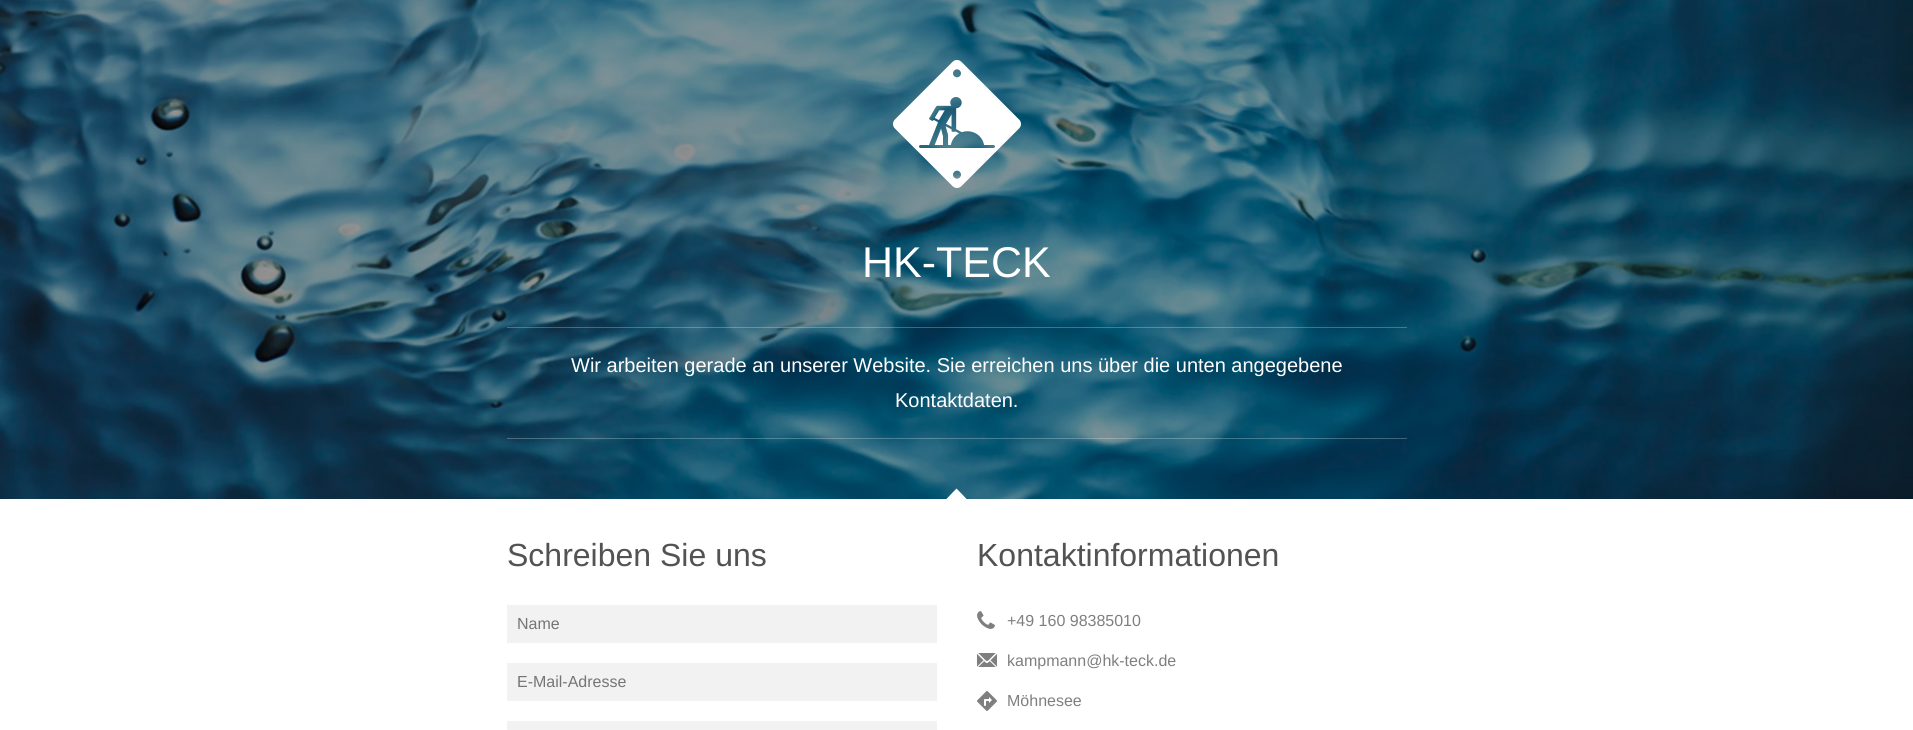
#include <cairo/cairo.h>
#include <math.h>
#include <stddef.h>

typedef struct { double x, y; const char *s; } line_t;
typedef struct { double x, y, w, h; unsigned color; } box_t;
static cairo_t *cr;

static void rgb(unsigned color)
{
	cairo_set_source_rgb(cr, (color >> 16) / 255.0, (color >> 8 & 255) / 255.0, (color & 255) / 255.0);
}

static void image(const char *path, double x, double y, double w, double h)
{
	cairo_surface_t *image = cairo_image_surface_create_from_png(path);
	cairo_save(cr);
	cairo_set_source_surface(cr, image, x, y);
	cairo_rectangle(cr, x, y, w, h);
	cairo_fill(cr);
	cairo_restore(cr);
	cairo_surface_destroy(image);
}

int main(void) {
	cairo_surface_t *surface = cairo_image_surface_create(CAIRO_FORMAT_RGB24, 1913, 730);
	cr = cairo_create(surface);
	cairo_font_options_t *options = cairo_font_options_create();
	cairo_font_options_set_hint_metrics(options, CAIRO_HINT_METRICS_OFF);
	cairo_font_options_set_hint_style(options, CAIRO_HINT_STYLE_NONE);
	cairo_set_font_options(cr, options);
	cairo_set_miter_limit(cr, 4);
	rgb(0xffffff);
	cairo_paint(cr);
	image("img/1.png", 0, 0, 1913, 499);
	image("img/2.png", 893, 60, 128, 128);
	cairo_set_source_rgba(cr, 1, 1, 1, 0.25);
	cairo_rectangle(cr, 507, 327, 900, 1);
	cairo_fill(cr);
	cairo_rectangle(cr, 507, 438, 900, 1);
	cairo_fill(cr);
	rgb(0xffffff);
	cairo_new_path(cr);
	cairo_move_to(cr, 956.5, 488.5);
	cairo_line_to(cr, 970.5, 503);
	cairo_line_to(cr, 956.5, 517);
	cairo_line_to(cr, 942.5, 503);
	cairo_close_path(cr);
	cairo_fill(cr);
	{
		static const box_t items[] = {
			{507, 605, 430, 38, 0xf2f2f2},
			{507, 663, 430, 38, 0xf2f2f2},
			{507, 721, 430, 9, 0xf2f2f2},
		};
		for (size_t i = 0; i < sizeof items / sizeof *items; i++) {
			rgb(items[i].color);
			cairo_rectangle(cr, items[i].x, items[i].y, items[i].w, items[i].h);
			cairo_fill(cr);
		}
	}
	image("img/3.png", 977, 611, 18, 18);
	image("img/4.png", 977, 653, 20, 14);
	image("img/5.png", 977, 691, 20, 20);
	cairo_select_font_face(cr, "Liberation Sans", CAIRO_FONT_SLANT_NORMAL, CAIRO_FONT_WEIGHT_NORMAL);
	cairo_set_font_size(cr, 43);
	rgb(0xffffff);
	cairo_move_to(cr, 862, 277);
	cairo_show_text(cr, "HK-TECK");
	cairo_set_font_size(cr, 20);
	cairo_move_to(cr, 571, 372);
	cairo_show_text(cr, "Wir arbeiten gerade an unserer Website. Sie erreichen uns über die unten angegebene");
	cairo_move_to(cr, 895, 407);
	cairo_show_text(cr, "Kontaktdaten.");
	cairo_set_font_size(cr, 32);
	rgb(0x535353);
	cairo_move_to(cr, 507, 566);
	cairo_show_text(cr, "Schreiben Sie uns");
	cairo_set_font_size(cr, 16);
	rgb(0x757575);
	cairo_move_to(cr, 517, 629);
	cairo_show_text(cr, "Name");
	cairo_move_to(cr, 517, 687);
	cairo_show_text(cr, "E-Mail-Adresse");
	cairo_set_font_size(cr, 32);
	rgb(0x535353);
	cairo_move_to(cr, 977, 566);
	cairo_show_text(cr, "Kontaktinformationen");
	cairo_set_font_size(cr, 16);
	rgb(0x7f7f7f);
	{
		static const line_t items[] = {
			{1007, 626, "+49 160 98385010"},
			{1007, 666, "kampmann@hk-teck.de"},
			{1007, 706, "Möhnesee"},
		};
		for (size_t i = 0; i < sizeof items / sizeof *items; i++) {
			cairo_move_to(cr, items[i].x, items[i].y);
			cairo_show_text(cr, items[i].s);
		}
	}
	cairo_surface_write_to_png(surface, "page.png");
	cairo_font_options_destroy(options);
	cairo_destroy(cr);
	cairo_surface_destroy(surface);
	return 0;
}
